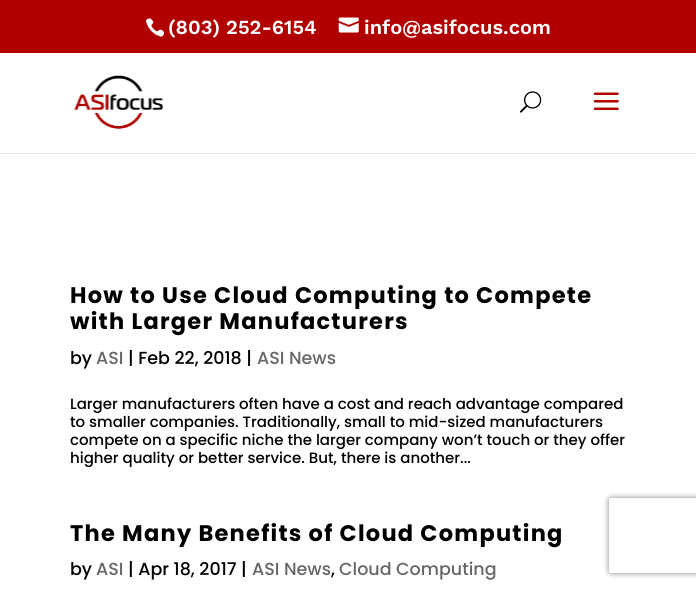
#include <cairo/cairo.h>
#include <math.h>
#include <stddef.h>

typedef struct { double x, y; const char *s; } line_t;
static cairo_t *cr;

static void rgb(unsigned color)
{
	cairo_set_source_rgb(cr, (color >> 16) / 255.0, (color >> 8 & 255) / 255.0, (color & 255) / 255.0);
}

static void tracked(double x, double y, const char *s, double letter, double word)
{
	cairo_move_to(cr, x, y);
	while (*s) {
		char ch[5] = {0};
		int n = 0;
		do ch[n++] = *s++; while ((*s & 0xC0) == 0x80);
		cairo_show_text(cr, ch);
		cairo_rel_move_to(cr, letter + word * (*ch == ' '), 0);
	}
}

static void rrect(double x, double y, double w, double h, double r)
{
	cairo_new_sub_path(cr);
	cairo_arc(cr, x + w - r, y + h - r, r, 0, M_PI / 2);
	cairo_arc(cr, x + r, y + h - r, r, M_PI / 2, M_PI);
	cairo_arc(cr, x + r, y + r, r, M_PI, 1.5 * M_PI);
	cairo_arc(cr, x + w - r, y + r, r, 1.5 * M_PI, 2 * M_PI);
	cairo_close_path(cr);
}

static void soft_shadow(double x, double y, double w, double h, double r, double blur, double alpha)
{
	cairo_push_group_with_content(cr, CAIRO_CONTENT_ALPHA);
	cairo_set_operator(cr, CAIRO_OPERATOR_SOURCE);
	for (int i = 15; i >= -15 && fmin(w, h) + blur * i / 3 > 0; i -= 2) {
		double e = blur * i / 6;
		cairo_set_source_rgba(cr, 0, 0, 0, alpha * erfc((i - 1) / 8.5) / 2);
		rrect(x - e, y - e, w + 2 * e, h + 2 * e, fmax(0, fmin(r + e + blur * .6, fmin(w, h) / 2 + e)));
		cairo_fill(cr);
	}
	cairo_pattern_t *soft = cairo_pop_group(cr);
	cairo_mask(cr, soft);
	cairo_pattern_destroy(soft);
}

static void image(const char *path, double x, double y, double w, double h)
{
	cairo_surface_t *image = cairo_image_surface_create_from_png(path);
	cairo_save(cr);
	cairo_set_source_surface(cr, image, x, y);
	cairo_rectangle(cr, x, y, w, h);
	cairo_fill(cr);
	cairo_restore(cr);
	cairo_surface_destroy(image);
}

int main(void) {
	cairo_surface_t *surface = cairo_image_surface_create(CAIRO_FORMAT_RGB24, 696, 590);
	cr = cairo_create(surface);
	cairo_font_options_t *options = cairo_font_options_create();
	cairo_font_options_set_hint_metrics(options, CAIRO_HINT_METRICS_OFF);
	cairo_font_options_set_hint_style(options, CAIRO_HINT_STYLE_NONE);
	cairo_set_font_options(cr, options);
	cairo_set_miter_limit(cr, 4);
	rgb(0xffffff);
	cairo_paint(cr);
	rgb(0xb00000);
	cairo_rectangle(cr, 0, 0, 696, 53);
	cairo_fill(cr);
	image("img/1.png", 145, 18, 20, 19);
	image("img/2.png", 338, 17, 21, 16);
	rgb(0xe6e6e6);
	cairo_rectangle(cr, 0, 153, 696, 1);
	cairo_fill(cr);
	image("img/3.png", 74, 75, 90, 54);
	image("img/4.png", 520, 91, 22, 22);
	image("img/5.png", 593, 92, 26, 18);
	cairo_save(cr);
	cairo_set_fill_rule(cr, CAIRO_FILL_RULE_EVEN_ODD);
	cairo_new_path(cr);
	cairo_move_to(cr, 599, 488);
	cairo_line_to(cr, 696, 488);
	cairo_line_to(cr, 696, 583);
	cairo_line_to(cr, 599, 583);
	cairo_close_path(cr);
	cairo_move_to(cr, 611.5, 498);
	cairo_line_to(cr, 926.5, 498);
	cairo_curve_to(cr, 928, 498, 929, 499, 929, 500.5);
	cairo_line_to(cr, 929, 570.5);
	cairo_curve_to(cr, 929, 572, 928, 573, 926.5, 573);
	cairo_line_to(cr, 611.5, 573);
	cairo_curve_to(cr, 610, 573, 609, 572, 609, 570.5);
	cairo_line_to(cr, 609, 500.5);
	cairo_curve_to(cr, 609, 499, 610, 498, 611.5, 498);
	cairo_close_path(cr);
	cairo_clip(cr);
	rgb(0x808080);
	soft_shadow(609, 498, 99, 75, 2.5, 3, 1);
	cairo_restore(cr);
	cairo_select_font_face(cr, "Work Sans SemiBold", CAIRO_FONT_SLANT_NORMAL, CAIRO_FONT_WEIGHT_NORMAL);
	cairo_set_font_size(cr, 20);
	rgb(0xffffff);
	cairo_move_to(cr, 168, 34);
	cairo_show_text(cr, "(803) 252-6154");
	cairo_move_to(cr, 364, 34);
	cairo_show_text(cr, "info@asifocus.com");
	cairo_select_font_face(cr, "Poppins", CAIRO_FONT_SLANT_NORMAL, CAIRO_FONT_WEIGHT_BOLD);
	cairo_set_font_size(cr, 22.5);
	rgb(0x000000);
	tracked(70, 303, "How to Use Cloud Computing to Compete", 1.25, 0);
	tracked(70, 329, "with Larger Manufacturers", 1.25, 0);
	cairo_select_font_face(cr, "Poppins Medium", CAIRO_FONT_SLANT_NORMAL, CAIRO_FONT_WEIGHT_NORMAL);
	cairo_set_font_size(cr, 17.5);
	cairo_move_to(cr, 70, 364);
	cairo_show_text(cr, "by");
	rgb(0x666666);
	cairo_move_to(cr, 96, 364);
	cairo_show_text(cr, "ASI");
	rgb(0x000000);
	cairo_move_to(cr, 128, 364);
	cairo_show_text(cr, "| Feb 22, 2018 |");
	rgb(0x666666);
	cairo_move_to(cr, 257, 364);
	cairo_show_text(cr, "ASI News");
	cairo_set_font_size(cr, 15);
	rgb(0x000000);
	{
		static const line_t items[] = {
			{70, 409, "Larger manufacturers often have a cost and reach advantage compared"},
			{70, 427, "to smaller companies. Traditionally, small to mid-sized manufacturers"},
			{70, 445, "compete on a specific niche the larger company won’t touch or they offer"},
			{70, 463, "higher quality or better service. But, there is another..."},
		};
		for (size_t i = 0; i < sizeof items / sizeof *items; i++) {
			cairo_move_to(cr, items[i].x, items[i].y);
			cairo_show_text(cr, items[i].s);
		}
	}
	cairo_select_font_face(cr, "Poppins", CAIRO_FONT_SLANT_NORMAL, CAIRO_FONT_WEIGHT_BOLD);
	cairo_set_font_size(cr, 22.5);
	tracked(70, 541, "The Many Benefits of Cloud Computing", 1.25, 0);
	cairo_select_font_face(cr, "Poppins Medium", CAIRO_FONT_SLANT_NORMAL, CAIRO_FONT_WEIGHT_NORMAL);
	cairo_set_font_size(cr, 17.5);
	cairo_move_to(cr, 70, 575);
	cairo_show_text(cr, "by");
	rgb(0x666666);
	cairo_move_to(cr, 96, 575);
	cairo_show_text(cr, "ASI");
	rgb(0x000000);
	cairo_move_to(cr, 128, 575);
	cairo_show_text(cr, "| Apr 18, 2017 |");
	rgb(0x666666);
	cairo_move_to(cr, 252, 575);
	cairo_show_text(cr, "ASI News");
	rgb(0x000000);
	cairo_move_to(cr, 331, 575);
	cairo_show_text(cr, ",");
	rgb(0x666666);
	cairo_move_to(cr, 339, 575);
	cairo_show_text(cr, "Cloud Computing");
	cairo_surface_write_to_png(surface, "page.png");
	cairo_font_options_destroy(options);
	cairo_destroy(cr);
	cairo_surface_destroy(surface);
	return 0;
}
